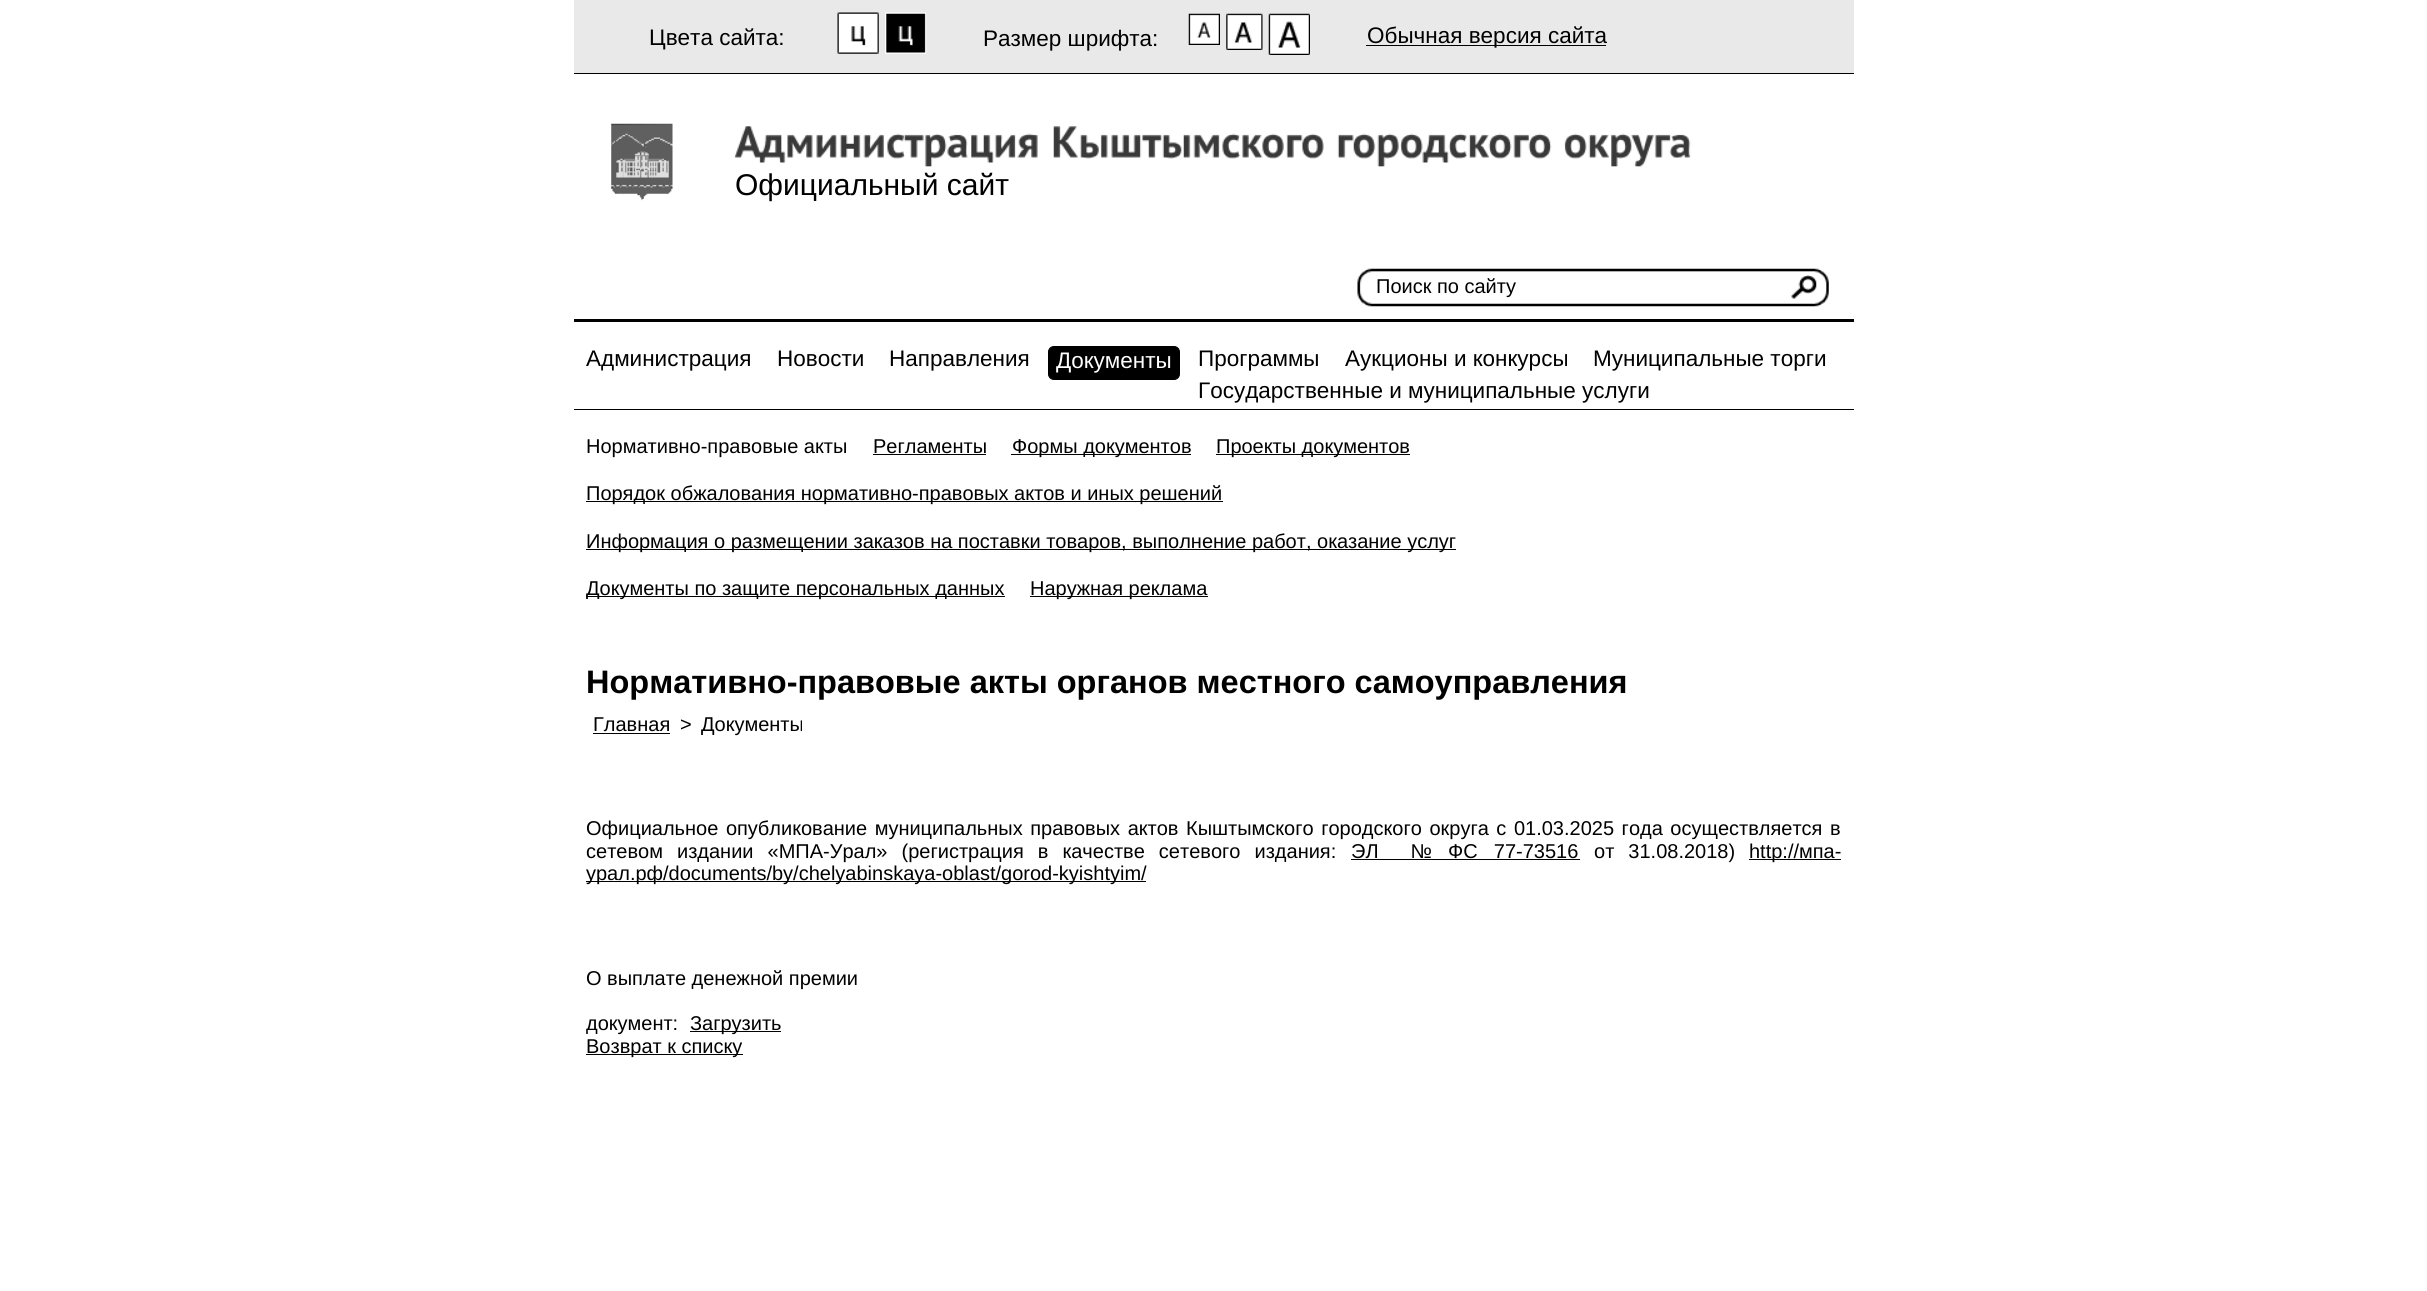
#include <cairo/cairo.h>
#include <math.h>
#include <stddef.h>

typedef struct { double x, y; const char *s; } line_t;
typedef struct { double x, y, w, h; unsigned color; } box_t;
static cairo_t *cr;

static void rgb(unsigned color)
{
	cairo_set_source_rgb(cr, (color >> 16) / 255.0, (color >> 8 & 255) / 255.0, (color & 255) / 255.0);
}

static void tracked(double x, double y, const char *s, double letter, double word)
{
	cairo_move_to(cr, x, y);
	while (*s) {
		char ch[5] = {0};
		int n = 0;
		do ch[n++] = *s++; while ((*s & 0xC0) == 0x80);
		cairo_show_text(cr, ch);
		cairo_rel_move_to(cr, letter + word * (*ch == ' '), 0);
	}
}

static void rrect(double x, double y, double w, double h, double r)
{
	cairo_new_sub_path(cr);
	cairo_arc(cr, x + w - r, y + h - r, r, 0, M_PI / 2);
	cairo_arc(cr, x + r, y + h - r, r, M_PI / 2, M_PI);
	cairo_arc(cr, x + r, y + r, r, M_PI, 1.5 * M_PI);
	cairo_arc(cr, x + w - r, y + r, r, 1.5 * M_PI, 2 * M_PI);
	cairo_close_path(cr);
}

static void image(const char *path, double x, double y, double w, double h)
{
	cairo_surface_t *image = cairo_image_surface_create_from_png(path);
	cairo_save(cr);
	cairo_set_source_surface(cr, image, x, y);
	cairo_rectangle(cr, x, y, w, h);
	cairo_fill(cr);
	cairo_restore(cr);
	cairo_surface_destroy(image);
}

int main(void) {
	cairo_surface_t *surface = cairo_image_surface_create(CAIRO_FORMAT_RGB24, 2427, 1291);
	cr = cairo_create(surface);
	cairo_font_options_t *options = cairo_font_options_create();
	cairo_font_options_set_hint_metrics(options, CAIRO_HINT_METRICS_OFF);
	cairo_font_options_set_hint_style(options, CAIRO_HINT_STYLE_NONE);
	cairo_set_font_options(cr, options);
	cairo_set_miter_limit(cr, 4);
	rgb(0xffffff);
	cairo_paint(cr);
	rgb(0xe9e9e9);
	cairo_rectangle(cr, 574, 0, 1280, 73);
	cairo_fill(cr);
	rgb(0x000000);
	cairo_rectangle(cr, 574, 73, 1280, 1);
	cairo_fill(cr);
	image("img/1.png", 837, 12, 42, 42);
	image("img/2.png", 885, 12, 42, 42);
	image("img/3.png", 1188, 13, 32, 32);
	image("img/4.png", 1226, 13, 37, 37);
	image("img/5.png", 1268, 13, 42, 42);
	cairo_rectangle(cr, 1366, 45, 240, 1);
	cairo_fill(cr);
	image("img/6.png", 611, 123, 62, 78);
	image("img/7.png", 734, 126, 304, 41);
	image("img/8.png", 1053, 126, 271, 33);
	image("img/9.png", 1337, 133, 215, 34);
	image("img/10.png", 1564, 133, 127, 34);
	image("img/11.png", 1357, 268, 472, 39);
	image("img/12.png", 1791, 275, 26, 24);
	cairo_rectangle(cr, 574, 319, 1280, 3);
	cairo_fill(cr);
	cairo_rectangle(cr, 574, 409, 1280, 1);
	cairo_fill(cr);
	rrect(1048.5, 346.5, 131, 33, 5.5);
	cairo_fill_preserve(cr);
	cairo_set_line_width(cr, 1);
	cairo_stroke(cr);
	{
		static const box_t items[] = {
			{873, 454, 113, 1, 0x000000},
			{1011, 454, 180, 1, 0x000000},
			{1216, 454, 194, 1, 0x000000},
			{586, 501, 637, 1, 0x000000},
			{586, 549, 870, 1, 0x000000},
			{586, 596, 419, 1, 0x000000},
			{1030, 596, 178, 1, 0x000000},
			{593, 733, 77, 1, 0x000000},
			{1351, 859, 229, 1, 0x000000},
			{1749, 859, 92, 1, 0x000000},
			{586, 881, 560, 1, 0x000000},
			{690, 1031, 91, 1, 0x000000},
			{586, 1054, 157, 1, 0x000000},
		};
		for (size_t i = 0; i < sizeof items / sizeof *items; i++) {
			rgb(items[i].color);
			cairo_rectangle(cr, items[i].x, items[i].y, items[i].w, items[i].h);
			cairo_fill(cr);
		}
	}
	cairo_select_font_face(cr, "Liberation Sans", CAIRO_FONT_SLANT_NORMAL, CAIRO_FONT_WEIGHT_NORMAL);
	cairo_set_font_size(cr, 22.5);
	{
		static const line_t items[] = {
			{649, 45, "Цвета сайта:"},
			{983, 46, "Размер шрифта:"},
			{1367, 43, "Обычная версия сайта"},
		};
		for (size_t i = 0; i < sizeof items / sizeof *items; i++) {
			cairo_move_to(cr, items[i].x, items[i].y);
			cairo_show_text(cr, items[i].s);
		}
	}
	cairo_set_font_size(cr, 30);
	cairo_move_to(cr, 735, 195);
	cairo_show_text(cr, "Официальный сайт");
	cairo_set_font_size(cr, 20);
	cairo_move_to(cr, 1376, 293);
	cairo_show_text(cr, "Поиск по сайту");
	cairo_set_font_size(cr, 22.5);
	{
		static const line_t items[] = {
			{586, 366, "Администрация"},
			{777, 366, "Новости"},
			{889, 366, "Направления"},
		};
		for (size_t i = 0; i < sizeof items / sizeof *items; i++) {
			cairo_move_to(cr, items[i].x, items[i].y);
			cairo_show_text(cr, items[i].s);
		}
	}
	rgb(0xffffff);
	cairo_move_to(cr, 1056, 368);
	cairo_show_text(cr, "Документы");
	rgb(0x000000);
	{
		static const line_t items[] = {
			{1198, 366, "Программы"},
			{1345, 366, "Аукционы и конкурсы"},
			{1593, 366, "Муниципальные торги"},
			{1198, 398, "Государственные и муниципальные услуги"},
		};
		for (size_t i = 0; i < sizeof items / sizeof *items; i++) {
			cairo_move_to(cr, items[i].x, items[i].y);
			cairo_show_text(cr, items[i].s);
		}
	}
	cairo_set_font_size(cr, 20);
	{
		static const line_t items[] = {
			{586, 453, "Нормативно-правовые акты"},
			{873, 453, "Регламенты"},
			{1012, 453, "Формы документов"},
			{1216, 453, "Проекты документов"},
			{586, 500, "Порядок обжалования нормативно-правовых актов и иных решений"},
			{586, 548, "Информация о размещении заказов на поставки товаров, выполнение работ, оказание услуг"},
			{586, 595, "Документы по защите персональных данных"},
			{1030, 595, "Наружная реклама"},
		};
		for (size_t i = 0; i < sizeof items / sizeof *items; i++) {
			cairo_move_to(cr, items[i].x, items[i].y);
			cairo_show_text(cr, items[i].s);
		}
	}
	cairo_select_font_face(cr, "Liberation Sans", CAIRO_FONT_SLANT_NORMAL, CAIRO_FONT_WEIGHT_BOLD);
	cairo_set_font_size(cr, 32.5);
	cairo_move_to(cr, 586, 693);
	cairo_show_text(cr, "Нормативно-правовые акты органов местного самоуправления");
	cairo_select_font_face(cr, "Liberation Sans", CAIRO_FONT_SLANT_NORMAL, CAIRO_FONT_WEIGHT_NORMAL);
	cairo_set_font_size(cr, 20);
	{
		static const line_t items[] = {
			{593, 731, "Главная"},
			{680, 731, ">"},
			{701, 731, "Документы"},
		};
		for (size_t i = 0; i < sizeof items / sizeof *items; i++) {
			cairo_move_to(cr, items[i].x, items[i].y);
			cairo_show_text(cr, items[i].s);
		}
	}
	tracked(586, 835, "Официальное опубликование муниципальных правовых актов Кыштымского городского округа с 01.03.2025 года осуществляется в", 0, 2);
	tracked(586, 858, "сетевом издании «МПА-Урал» (регистрация в качестве сетевого издания:", 0, 8.5);
	tracked(1351, 858, "ЭЛ  № ФС 77-73516", 0, 10.5);
	tracked(1594, 858, "от 31.08.2018)", 0, 8.5);
	{
		static const line_t items[] = {
			{1749, 858, "http://мпа-"},
			{586, 880, "урал.рф/documents/by/chelyabinskaya-oblast/gorod-kyishtyim/"},
			{586, 985, "О выплате денежной премии"},
			{586, 1030, "документ:"},
			{690, 1030, "Загрузить"},
			{586, 1053, "Возврат к списку"},
		};
		for (size_t i = 0; i < sizeof items / sizeof *items; i++) {
			cairo_move_to(cr, items[i].x, items[i].y);
			cairo_show_text(cr, items[i].s);
		}
	}
	cairo_surface_write_to_png(surface, "page.png");
	cairo_font_options_destroy(options);
	cairo_destroy(cr);
	cairo_surface_destroy(surface);
	return 0;
}
